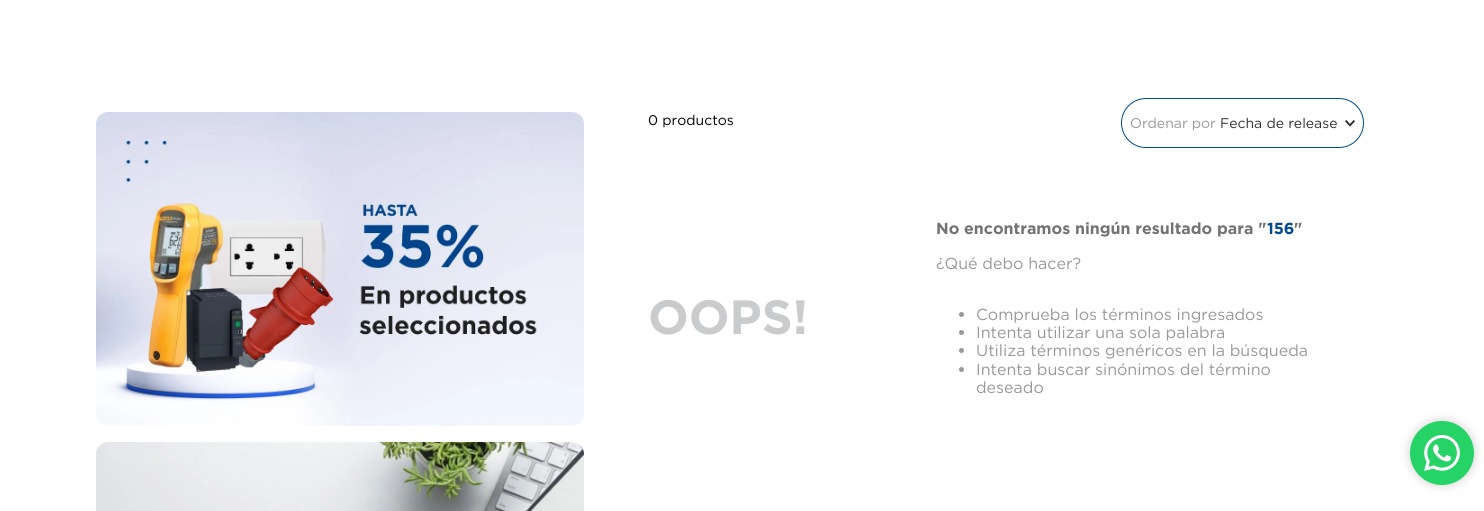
#include <cairo/cairo.h>
#include <math.h>
#include <stddef.h>

typedef struct { double x, y; const char *s; } line_t;
static cairo_t *cr;

static void rgb(unsigned color)
{
	cairo_set_source_rgb(cr, (color >> 16) / 255.0, (color >> 8 & 255) / 255.0, (color & 255) / 255.0);
}

static void rrect(double x, double y, double w, double h, double r)
{
	cairo_new_sub_path(cr);
	cairo_arc(cr, x + w - r, y + h - r, r, 0, M_PI / 2);
	cairo_arc(cr, x + r, y + h - r, r, M_PI / 2, M_PI);
	cairo_arc(cr, x + r, y + r, r, M_PI, 1.5 * M_PI);
	cairo_arc(cr, x + w - r, y + r, r, 1.5 * M_PI, 2 * M_PI);
	cairo_close_path(cr);
}

static void soft_shadow(double x, double y, double w, double h, double r, double blur, double alpha)
{
	cairo_push_group_with_content(cr, CAIRO_CONTENT_ALPHA);
	cairo_set_operator(cr, CAIRO_OPERATOR_SOURCE);
	for (int i = 15; i >= -15 && fmin(w, h) + blur * i / 3 > 0; i -= 2) {
		double e = blur * i / 6;
		cairo_set_source_rgba(cr, 0, 0, 0, alpha * erfc((i - 1) / 8.5) / 2);
		rrect(x - e, y - e, w + 2 * e, h + 2 * e, fmax(0, fmin(r + e + blur * .6, fmin(w, h) / 2 + e)));
		cairo_fill(cr);
	}
	cairo_pattern_t *soft = cairo_pop_group(cr);
	cairo_mask(cr, soft);
	cairo_pattern_destroy(soft);
}

static void image(const char *path, double x, double y, double w, double h)
{
	cairo_surface_t *image = cairo_image_surface_create_from_png(path);
	cairo_save(cr);
	cairo_set_source_surface(cr, image, x, y);
	cairo_rectangle(cr, x, y, w, h);
	cairo_fill(cr);
	cairo_restore(cr);
	cairo_surface_destroy(image);
}

int main(void) {
	cairo_surface_t *surface = cairo_image_surface_create(CAIRO_FORMAT_RGB24, 1484, 511);
	cr = cairo_create(surface);
	cairo_font_options_t *options = cairo_font_options_create();
	cairo_font_options_set_hint_metrics(options, CAIRO_HINT_METRICS_OFF);
	cairo_font_options_set_hint_style(options, CAIRO_HINT_STYLE_NONE);
	cairo_set_font_options(cr, options);
	cairo_set_miter_limit(cr, 4);
	rgb(0xffffff);
	cairo_paint(cr);
	image("img/1.png", 96, 112, 488, 314);
	image("img/2.png", 96, 442, 488, 69);
	rrect(1121.5, 98.5, 242, 49, 24.5);
	rgb(0x004a8f);
	cairo_set_line_width(cr, 1);
	cairo_stroke(cr);
	image("img/3.png", 1345, 120, 10, 7);
	rgb(0x979899);
	cairo_arc(cr, 961.5, 314.5, 2.5, 0, 2 * M_PI);
	cairo_fill(cr);
	cairo_arc(cr, 961.5, 332.5, 2.5, 0, 2 * M_PI);
	cairo_fill(cr);
	cairo_arc(cr, 961.5, 350.5, 2.5, 0, 2 * M_PI);
	cairo_fill(cr);
	cairo_arc(cr, 961.5, 369.5, 2.5, 0, 2 * M_PI);
	cairo_fill(cr);
	rgb(0x000000);
	soft_shadow(1410, 421, 64, 64, 32, 5, 0.2);
	image("img/4.png", 1410, 421, 64, 64);
	cairo_select_font_face(cr, "Gotham", CAIRO_FONT_SLANT_NORMAL, CAIRO_FONT_WEIGHT_NORMAL);
	cairo_set_font_size(cr, 14);
	rgb(0x000000);
	cairo_move_to(cr, 648, 125);
	cairo_show_text(cr, "0 productos");
	rgb(0x979899);
	cairo_move_to(cr, 1130, 128);
	cairo_show_text(cr, "Ordenar por");
	rgb(0x2f2f2f);
	cairo_move_to(cr, 1220, 128);
	cairo_show_text(cr, "Fecha de release");
	cairo_select_font_face(cr, "Gotham", CAIRO_FONT_SLANT_NORMAL, CAIRO_FONT_WEIGHT_BOLD);
	cairo_set_font_size(cr, 48);
	rgb(0xcacbcc);
	cairo_move_to(cr, 648, 334);
	cairo_show_text(cr, "OOPS!");
	cairo_set_font_size(cr, 16);
	rgb(0x727273);
	cairo_move_to(cr, 936, 234);
	cairo_show_text(cr, "No encontramos ningún resultado para \"");
	rgb(0x004a8f);
	cairo_move_to(cr, 1267, 234);
	cairo_show_text(cr, "156");
	rgb(0x727273);
	cairo_move_to(cr, 1294, 234);
	cairo_show_text(cr, "\"");
	cairo_select_font_face(cr, "Gotham", CAIRO_FONT_SLANT_NORMAL, CAIRO_FONT_WEIGHT_NORMAL);
	rgb(0x979899);
	{
		static const line_t items[] = {
			{936, 269, "¿Qué debo hacer?"},
			{976, 320, "Comprueba los términos ingresados"},
			{976, 338, "Intenta utilizar una sola palabra"},
			{976, 356, "Utiliza términos genéricos en la búsqueda"},
			{976, 375, "Intenta buscar sinónimos del término"},
			{976, 393, "deseado"},
		};
		for (size_t i = 0; i < sizeof items / sizeof *items; i++) {
			cairo_move_to(cr, items[i].x, items[i].y);
			cairo_show_text(cr, items[i].s);
		}
	}
	cairo_surface_write_to_png(surface, "page.png");
	cairo_font_options_destroy(options);
	cairo_destroy(cr);
	cairo_surface_destroy(surface);
	return 0;
}
